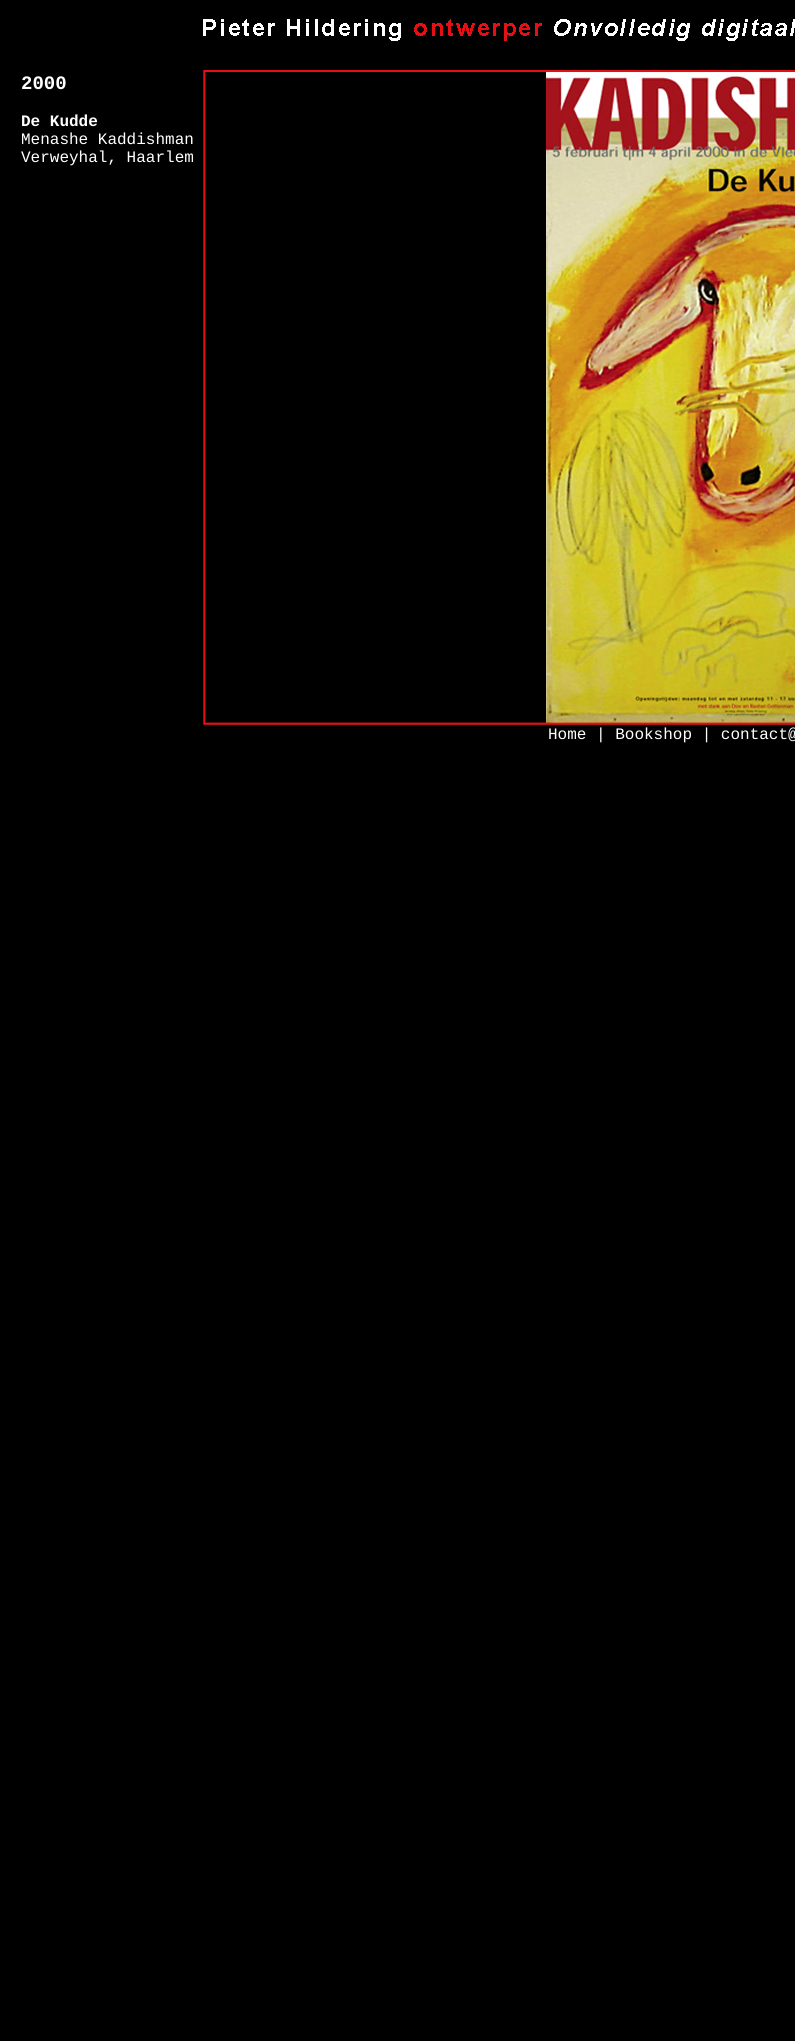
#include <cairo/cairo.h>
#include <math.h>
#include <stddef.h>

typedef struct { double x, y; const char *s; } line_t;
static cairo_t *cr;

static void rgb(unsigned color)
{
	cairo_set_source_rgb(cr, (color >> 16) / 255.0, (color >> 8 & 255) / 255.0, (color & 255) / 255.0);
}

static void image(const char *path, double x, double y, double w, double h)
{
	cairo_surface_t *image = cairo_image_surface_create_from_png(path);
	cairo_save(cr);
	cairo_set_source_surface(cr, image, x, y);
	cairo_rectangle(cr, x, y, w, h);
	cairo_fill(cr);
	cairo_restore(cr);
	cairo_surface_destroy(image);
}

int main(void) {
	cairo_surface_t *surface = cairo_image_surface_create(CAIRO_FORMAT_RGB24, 795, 2041);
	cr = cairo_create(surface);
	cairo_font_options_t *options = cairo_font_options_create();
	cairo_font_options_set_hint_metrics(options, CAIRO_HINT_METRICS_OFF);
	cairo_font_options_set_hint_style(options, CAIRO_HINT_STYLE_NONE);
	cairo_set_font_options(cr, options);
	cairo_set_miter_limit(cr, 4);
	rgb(0x000000);
	cairo_paint(cr);
	image("img/1.png", 203, 19, 592, 706);
	cairo_select_font_face(cr, "Liberation Mono", CAIRO_FONT_SLANT_NORMAL, CAIRO_FONT_WEIGHT_BOLD);
	cairo_set_font_size(cr, 19);
	rgb(0xffffff);
	cairo_move_to(cr, 21, 89);
	cairo_show_text(cr, "2000");
	cairo_set_font_size(cr, 16);
	cairo_move_to(cr, 21, 126);
	cairo_show_text(cr, "De Kudde");
	cairo_select_font_face(cr, "Liberation Mono", CAIRO_FONT_SLANT_NORMAL, CAIRO_FONT_WEIGHT_NORMAL);
	{
		static const line_t items[] = {
			{21, 144, "Menashe Kaddishman"},
			{21, 162, "Verweyhal, Haarlem"},
			{548, 739, "Home | Bookshop | contact@"},
		};
		for (size_t i = 0; i < sizeof items / sizeof *items; i++) {
			cairo_move_to(cr, items[i].x, items[i].y);
			cairo_show_text(cr, items[i].s);
		}
	}
	cairo_surface_write_to_png(surface, "page.png");
	cairo_font_options_destroy(options);
	cairo_destroy(cr);
	cairo_surface_destroy(surface);
	return 0;
}
